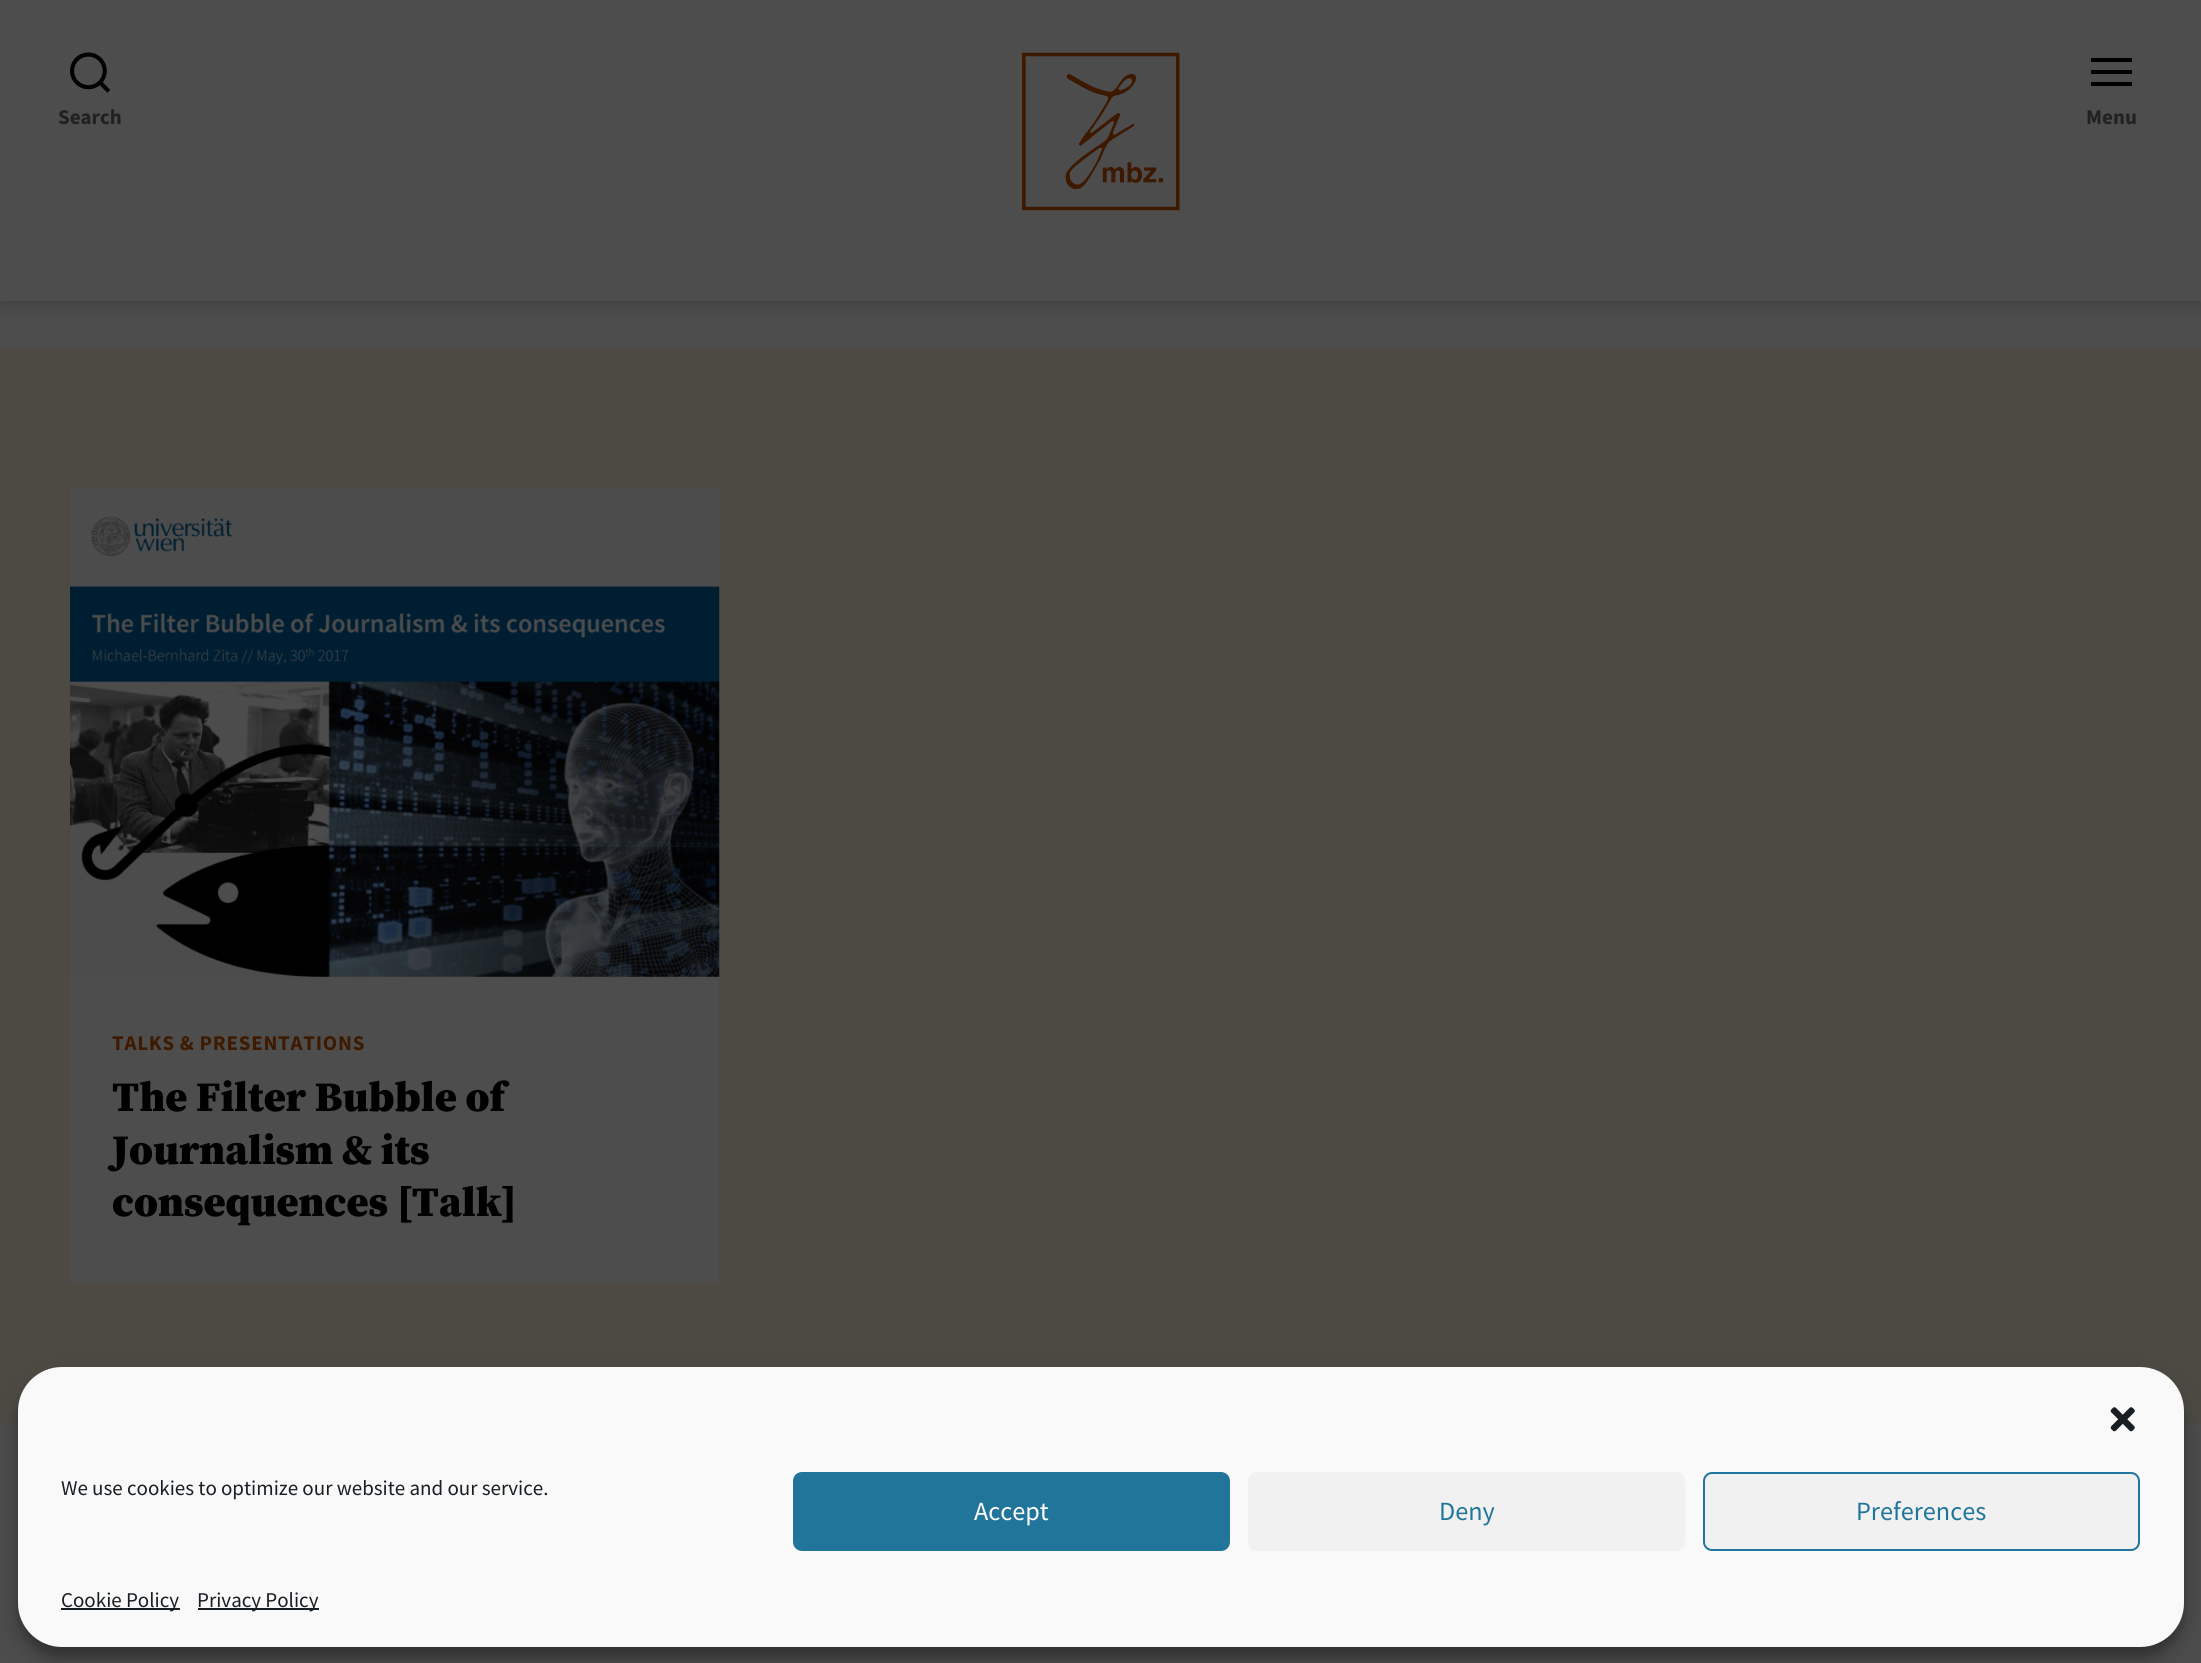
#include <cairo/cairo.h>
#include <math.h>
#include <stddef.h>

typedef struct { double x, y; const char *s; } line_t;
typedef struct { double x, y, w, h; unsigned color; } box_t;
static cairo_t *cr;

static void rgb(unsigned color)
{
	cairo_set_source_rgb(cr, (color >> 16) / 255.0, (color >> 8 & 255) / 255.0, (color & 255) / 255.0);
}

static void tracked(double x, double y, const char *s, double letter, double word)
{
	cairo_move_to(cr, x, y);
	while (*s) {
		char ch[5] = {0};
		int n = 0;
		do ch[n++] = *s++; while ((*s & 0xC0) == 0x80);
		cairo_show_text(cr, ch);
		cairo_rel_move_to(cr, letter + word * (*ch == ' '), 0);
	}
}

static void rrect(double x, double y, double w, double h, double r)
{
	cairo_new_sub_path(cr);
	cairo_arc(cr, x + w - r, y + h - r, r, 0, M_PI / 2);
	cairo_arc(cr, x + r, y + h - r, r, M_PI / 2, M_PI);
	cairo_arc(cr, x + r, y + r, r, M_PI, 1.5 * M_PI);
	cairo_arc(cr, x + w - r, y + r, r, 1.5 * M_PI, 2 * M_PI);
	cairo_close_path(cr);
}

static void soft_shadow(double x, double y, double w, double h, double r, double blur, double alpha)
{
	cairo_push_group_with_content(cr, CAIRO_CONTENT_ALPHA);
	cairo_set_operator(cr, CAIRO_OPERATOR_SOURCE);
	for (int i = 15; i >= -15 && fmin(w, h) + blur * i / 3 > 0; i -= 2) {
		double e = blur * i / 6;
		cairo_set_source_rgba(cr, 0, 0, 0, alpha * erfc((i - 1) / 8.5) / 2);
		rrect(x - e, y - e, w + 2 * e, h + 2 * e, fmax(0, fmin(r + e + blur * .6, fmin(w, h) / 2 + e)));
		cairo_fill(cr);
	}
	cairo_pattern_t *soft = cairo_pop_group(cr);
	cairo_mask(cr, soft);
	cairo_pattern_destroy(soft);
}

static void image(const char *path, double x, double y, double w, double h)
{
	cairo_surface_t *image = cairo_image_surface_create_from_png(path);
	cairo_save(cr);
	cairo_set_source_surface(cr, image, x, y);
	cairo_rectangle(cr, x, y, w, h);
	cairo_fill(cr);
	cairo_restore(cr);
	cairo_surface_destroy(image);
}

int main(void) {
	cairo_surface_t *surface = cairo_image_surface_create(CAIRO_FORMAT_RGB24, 2201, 1663);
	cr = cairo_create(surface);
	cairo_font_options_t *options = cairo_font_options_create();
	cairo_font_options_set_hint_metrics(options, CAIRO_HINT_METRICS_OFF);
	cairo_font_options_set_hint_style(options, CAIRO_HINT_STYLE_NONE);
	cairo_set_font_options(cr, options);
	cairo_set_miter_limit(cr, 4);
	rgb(0x4d4a44);
	cairo_paint(cr);
	rgb(0x4d4d4d);
	cairo_rectangle(cr, 0, 301, 2201, 47);
	cairo_fill(cr);
	rgb(0x000000);
	soft_shadow(0, 4, 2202, 301, 0, 9, 0.16);
	rgb(0x4d4d4d);
	cairo_rectangle(cr, 0, 0, 2201, 301);
	cairo_fill(cr);
	image("img/1.png", 1022, 52, 158, 159);
	image("img/2.png", 70, 52, 40, 41);
	{
		static const box_t items[] = {
			{2091, 58, 41, 4, 0x000000},
			{2091, 82, 41, 4, 0x000000},
			{2091, 70, 41, 4, 0x000000},
			{70, 488, 649, 795, 0x4d4d4d},
		};
		for (size_t i = 0; i < sizeof items / sizeof *items; i++) {
			rgb(items[i].color);
			cairo_rectangle(cr, items[i].x, items[i].y, items[i].w, items[i].h);
			cairo_fill(cr);
		}
	}
	image("img/3.png", 70, 489, 650, 488);
	cairo_rectangle(cr, 0, 1423, 2201, 240);
	cairo_fill(cr);
	rgb(0x000000);
	soft_shadow(18, 1377, 2166, 280, 44, 5, 0.23);
	soft_shadow(18, 1384, 2166, 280, 44, 17.5, 0.19);
	rgb(0xf9f9f9);
	rrect(22.5, 1371.5, 2157, 271, 39.5);
	cairo_fill_preserve(cr);
	cairo_set_line_width(cr, 9);
	cairo_stroke(cr);
	image("img/4.png", 2110, 1407, 25, 25);
	rgb(0x21759b);
	rrect(794, 1473, 435, 77, 8);
	cairo_fill_preserve(cr);
	cairo_set_line_width(cr, 2);
	cairo_stroke(cr);
	rgb(0xf1f1f1);
	rrect(1248, 1472, 437, 79, 9);
	cairo_fill(cr);
	rrect(1704, 1473, 435, 77, 8);
	cairo_fill_preserve(cr);
	rgb(0x21759b);
	cairo_stroke(cr);
	rgb(0x191e23);
	cairo_rectangle(cr, 61, 1608, 119, 2);
	cairo_fill(cr);
	cairo_rectangle(cr, 198, 1608, 121, 2);
	cairo_fill(cr);
	cairo_select_font_face(cr, "Source Sans Pro", CAIRO_FONT_SLANT_NORMAL, CAIRO_FONT_WEIGHT_BOLD);
	cairo_set_font_size(cr, 21);
	rgb(0x212121);
	cairo_move_to(cr, 58, 124);
	cairo_show_text(cr, "Search");
	cairo_move_to(cr, 2086, 124);
	cairo_show_text(cr, "Menu");
	rgb(0x3d1a00);
	tracked(112, 1050, "TALKS & PRESENTATIONS", 0.75, 0);
	cairo_select_font_face(cr, "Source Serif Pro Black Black", CAIRO_FONT_SLANT_NORMAL, CAIRO_FONT_WEIGHT_NORMAL);
	cairo_set_font_size(cr, 42);
	rgb(0x000000);
	{
		static const line_t items[] = {
			{112, 1111, "The Filter Bubble of"},
			{112, 1164, "Journalism & its"},
			{112, 1216, "consequences [Talk]"},
		};
		for (size_t i = 0; i < sizeof items / sizeof *items; i++) {
			cairo_move_to(cr, items[i].x, items[i].y);
			cairo_show_text(cr, items[i].s);
		}
	}
	cairo_select_font_face(cr, "Source Sans Pro", CAIRO_FONT_SLANT_NORMAL, CAIRO_FONT_WEIGHT_NORMAL);
	cairo_set_font_size(cr, 21);
	rgb(0x191e23);
	cairo_move_to(cr, 61, 1495);
	cairo_show_text(cr, "We use cookies to optimize our website and our service.");
	cairo_set_font_size(cr, 26.25);
	rgb(0xffffff);
	cairo_move_to(cr, 974, 1520);
	cairo_show_text(cr, "Accept");
	rgb(0x21759b);
	cairo_move_to(cr, 1439, 1520);
	cairo_show_text(cr, "Deny");
	cairo_move_to(cr, 1856, 1520);
	cairo_show_text(cr, "Preferences");
	cairo_set_font_size(cr, 21);
	rgb(0x191e23);
	cairo_move_to(cr, 61, 1607);
	cairo_show_text(cr, "Cookie Policy");
	cairo_move_to(cr, 197, 1607);
	cairo_show_text(cr, "Privacy Policy");
	cairo_surface_write_to_png(surface, "page.png");
	cairo_font_options_destroy(options);
	cairo_destroy(cr);
	cairo_surface_destroy(surface);
	return 0;
}
